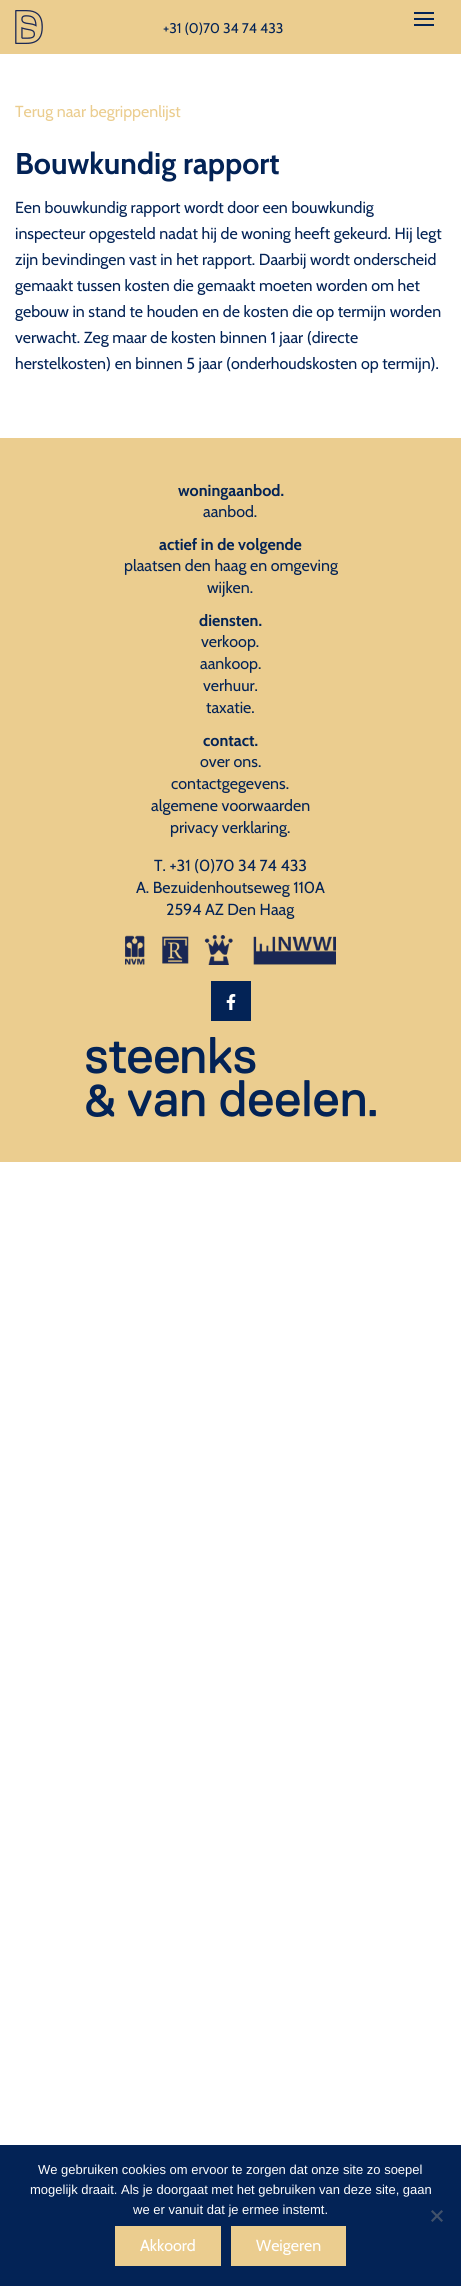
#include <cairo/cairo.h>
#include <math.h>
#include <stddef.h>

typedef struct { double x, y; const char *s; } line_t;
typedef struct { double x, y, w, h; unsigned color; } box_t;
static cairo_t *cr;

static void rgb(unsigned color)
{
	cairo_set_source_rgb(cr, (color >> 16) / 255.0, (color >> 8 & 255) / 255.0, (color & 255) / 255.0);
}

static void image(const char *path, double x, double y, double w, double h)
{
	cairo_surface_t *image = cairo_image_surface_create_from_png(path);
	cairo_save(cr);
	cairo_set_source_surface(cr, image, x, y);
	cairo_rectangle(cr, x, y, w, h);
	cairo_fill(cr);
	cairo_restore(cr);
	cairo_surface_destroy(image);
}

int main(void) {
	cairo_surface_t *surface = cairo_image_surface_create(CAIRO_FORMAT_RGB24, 461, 2286);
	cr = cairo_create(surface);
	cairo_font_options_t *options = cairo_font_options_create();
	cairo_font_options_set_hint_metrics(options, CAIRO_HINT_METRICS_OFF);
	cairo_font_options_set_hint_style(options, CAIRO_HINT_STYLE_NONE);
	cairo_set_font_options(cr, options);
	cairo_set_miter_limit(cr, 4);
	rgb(0xffffff);
	cairo_paint(cr);
	rgb(0xebcd8f);
	cairo_rectangle(cr, 0, 0, 461, 54);
	cairo_fill(cr);
	image("img/1.png", 15, 10, 28, 34);
	{
		static const box_t items[] = {
			{414, 12, 20, 2, 0x032356},
			{414, 18, 20, 2, 0x032356},
			{414, 24, 20, 2, 0x032356},
			{0, 438, 461, 724, 0xebcd8f},
		};
		for (size_t i = 0; i < sizeof items / sizeof *items; i++) {
			rgb(items[i].color);
			cairo_rectangle(cr, items[i].x, items[i].y, items[i].w, items[i].h);
			cairo_fill(cr);
		}
	}
	image("img/2.png", 125, 935, 211, 30);
	rgb(0x032356);
	cairo_rectangle(cr, 211, 981, 40, 40);
	cairo_fill(cr);
	image("img/3.png", 226, 994, 10, 16);
	image("img/4.png", 86, 1037, 290, 80);
	cairo_rectangle(cr, 0, 2145, 461, 141);
	cairo_fill(cr);
	rgb(0x42526b);
	cairo_new_path(cr);
	cairo_move_to(cr, 441.5, 2210);
	cairo_line_to(cr, 443, 2211.5);
	cairo_line_to(cr, 432.5, 2222);
	cairo_line_to(cr, 431, 2220.5);
	cairo_close_path(cr);
	cairo_fill(cr);
	cairo_new_path(cr);
	cairo_move_to(cr, 431, 2211.5);
	cairo_line_to(cr, 432.5, 2210);
	cairo_line_to(cr, 443, 2220.5);
	cairo_line_to(cr, 441.5, 2222);
	cairo_close_path(cr);
	cairo_fill(cr);
	rgb(0xebcd8f);
	cairo_rectangle(cr, 115, 2226, 106, 40);
	cairo_fill(cr);
	cairo_rectangle(cr, 231, 2226, 115, 40);
	cairo_fill(cr);
	cairo_select_font_face(cr, "Cabin", CAIRO_FONT_SLANT_NORMAL, CAIRO_FONT_WEIGHT_NORMAL);
	cairo_set_font_size(cr, 14);
	rgb(0x032356);
	cairo_move_to(cr, 163, 33);
	cairo_show_text(cr, "+31 (0)70 34 74 433");
	cairo_set_font_size(cr, 16);
	rgb(0xebcd8f);
	cairo_move_to(cr, 15, 117);
	cairo_show_text(cr, "Terug naar begrippenlijst");
	cairo_select_font_face(cr, "Cabin", CAIRO_FONT_SLANT_NORMAL, CAIRO_FONT_WEIGHT_BOLD);
	cairo_set_font_size(cr, 30);
	rgb(0x032356);
	cairo_move_to(cr, 15, 174);
	cairo_show_text(cr, "Bouwkundig rapport");
	cairo_select_font_face(cr, "Cabin", CAIRO_FONT_SLANT_NORMAL, CAIRO_FONT_WEIGHT_NORMAL);
	cairo_set_font_size(cr, 16);
	{
		static const line_t items[] = {
			{15, 213, "Een bouwkundig rapport wordt door een bouwkundig"},
			{15, 239, "inspecteur opgesteld nadat hij de woning heeft gekeurd. Hij legt"},
			{15, 265, "zijn bevindingen vast in het rapport. Daarbij wordt onderscheid"},
			{15, 291, "gemaakt tussen kosten die gemaakt moeten worden om het"},
			{15, 317, "gebouw in stand te houden en de kosten die op termijn worden"},
			{15, 343, "verwacht. Zeg maar de kosten binnen 1 jaar (directe"},
			{15, 369, "herstelkosten) en binnen 5 jaar (onderhoudskosten op termijn)."},
		};
		for (size_t i = 0; i < sizeof items / sizeof *items; i++) {
			cairo_move_to(cr, items[i].x, items[i].y);
			cairo_show_text(cr, items[i].s);
		}
	}
	cairo_select_font_face(cr, "Cabin", CAIRO_FONT_SLANT_NORMAL, CAIRO_FONT_WEIGHT_BOLD);
	cairo_move_to(cr, 178, 496);
	cairo_show_text(cr, "woningaanbod.");
	cairo_select_font_face(cr, "Cabin", CAIRO_FONT_SLANT_NORMAL, CAIRO_FONT_WEIGHT_NORMAL);
	cairo_move_to(cr, 203, 517);
	cairo_show_text(cr, "aanbod.");
	cairo_select_font_face(cr, "Cabin", CAIRO_FONT_SLANT_NORMAL, CAIRO_FONT_WEIGHT_BOLD);
	cairo_move_to(cr, 159, 550);
	cairo_show_text(cr, "actief in de volgende");
	cairo_select_font_face(cr, "Cabin", CAIRO_FONT_SLANT_NORMAL, CAIRO_FONT_WEIGHT_NORMAL);
	cairo_move_to(cr, 124, 571);
	cairo_show_text(cr, "plaatsen den haag en omgeving");
	cairo_move_to(cr, 207, 593);
	cairo_show_text(cr, "wijken.");
	cairo_select_font_face(cr, "Cabin", CAIRO_FONT_SLANT_NORMAL, CAIRO_FONT_WEIGHT_BOLD);
	cairo_move_to(cr, 199, 626);
	cairo_show_text(cr, "diensten.");
	cairo_select_font_face(cr, "Cabin", CAIRO_FONT_SLANT_NORMAL, CAIRO_FONT_WEIGHT_NORMAL);
	{
		static const line_t items[] = {
			{201, 647, "verkoop."},
			{200, 669, "aankoop."},
			{203, 691, "verhuur."},
			{206, 713, "taxatie."},
		};
		for (size_t i = 0; i < sizeof items / sizeof *items; i++) {
			cairo_move_to(cr, items[i].x, items[i].y);
			cairo_show_text(cr, items[i].s);
		}
	}
	cairo_select_font_face(cr, "Cabin", CAIRO_FONT_SLANT_NORMAL, CAIRO_FONT_WEIGHT_BOLD);
	cairo_move_to(cr, 203, 746);
	cairo_show_text(cr, "contact.");
	cairo_select_font_face(cr, "Cabin", CAIRO_FONT_SLANT_NORMAL, CAIRO_FONT_WEIGHT_NORMAL);
	{
		static const line_t items[] = {
			{200, 767, "over ons."},
			{171, 789, "contactgegevens."},
			{151, 811, "algemene voorwaarden"},
			{170, 833, "privacy verklaring."},
			{154, 871, "T. +31 (0)70 34 74 433"},
			{136, 893, "A. Bezuidenhoutseweg 110A"},
			{166, 915, "2594 AZ Den Haag"},
		};
		for (size_t i = 0; i < sizeof items / sizeof *items; i++) {
			cairo_move_to(cr, items[i].x, items[i].y);
			cairo_show_text(cr, items[i].s);
		}
	}
	cairo_select_font_face(cr, "Liberation Sans", CAIRO_FONT_SLANT_NORMAL, CAIRO_FONT_WEIGHT_NORMAL);
	cairo_set_font_size(cr, 13);
	rgb(0xffffff);
	{
		static const line_t items[] = {
			{38, 2174, "We gebruiken cookies om ervoor te zorgen dat onze site zo soepel"},
			{30, 2194, "mogelijk draait. Als je doorgaat met het gebruiken van deze site, gaan"},
			{133, 2214, "we er vanuit dat je ermee instemt."},
		};
		for (size_t i = 0; i < sizeof items / sizeof *items; i++) {
			cairo_move_to(cr, items[i].x, items[i].y);
			cairo_show_text(cr, items[i].s);
		}
	}
	cairo_select_font_face(cr, "Cabin", CAIRO_FONT_SLANT_NORMAL, CAIRO_FONT_WEIGHT_NORMAL);
	cairo_set_font_size(cr, 16);
	cairo_move_to(cr, 140, 2251);
	cairo_show_text(cr, "Akkoord");
	cairo_move_to(cr, 256, 2251);
	cairo_show_text(cr, "Weigeren");
	cairo_surface_write_to_png(surface, "page.png");
	cairo_font_options_destroy(options);
	cairo_destroy(cr);
	cairo_surface_destroy(surface);
	return 0;
}
